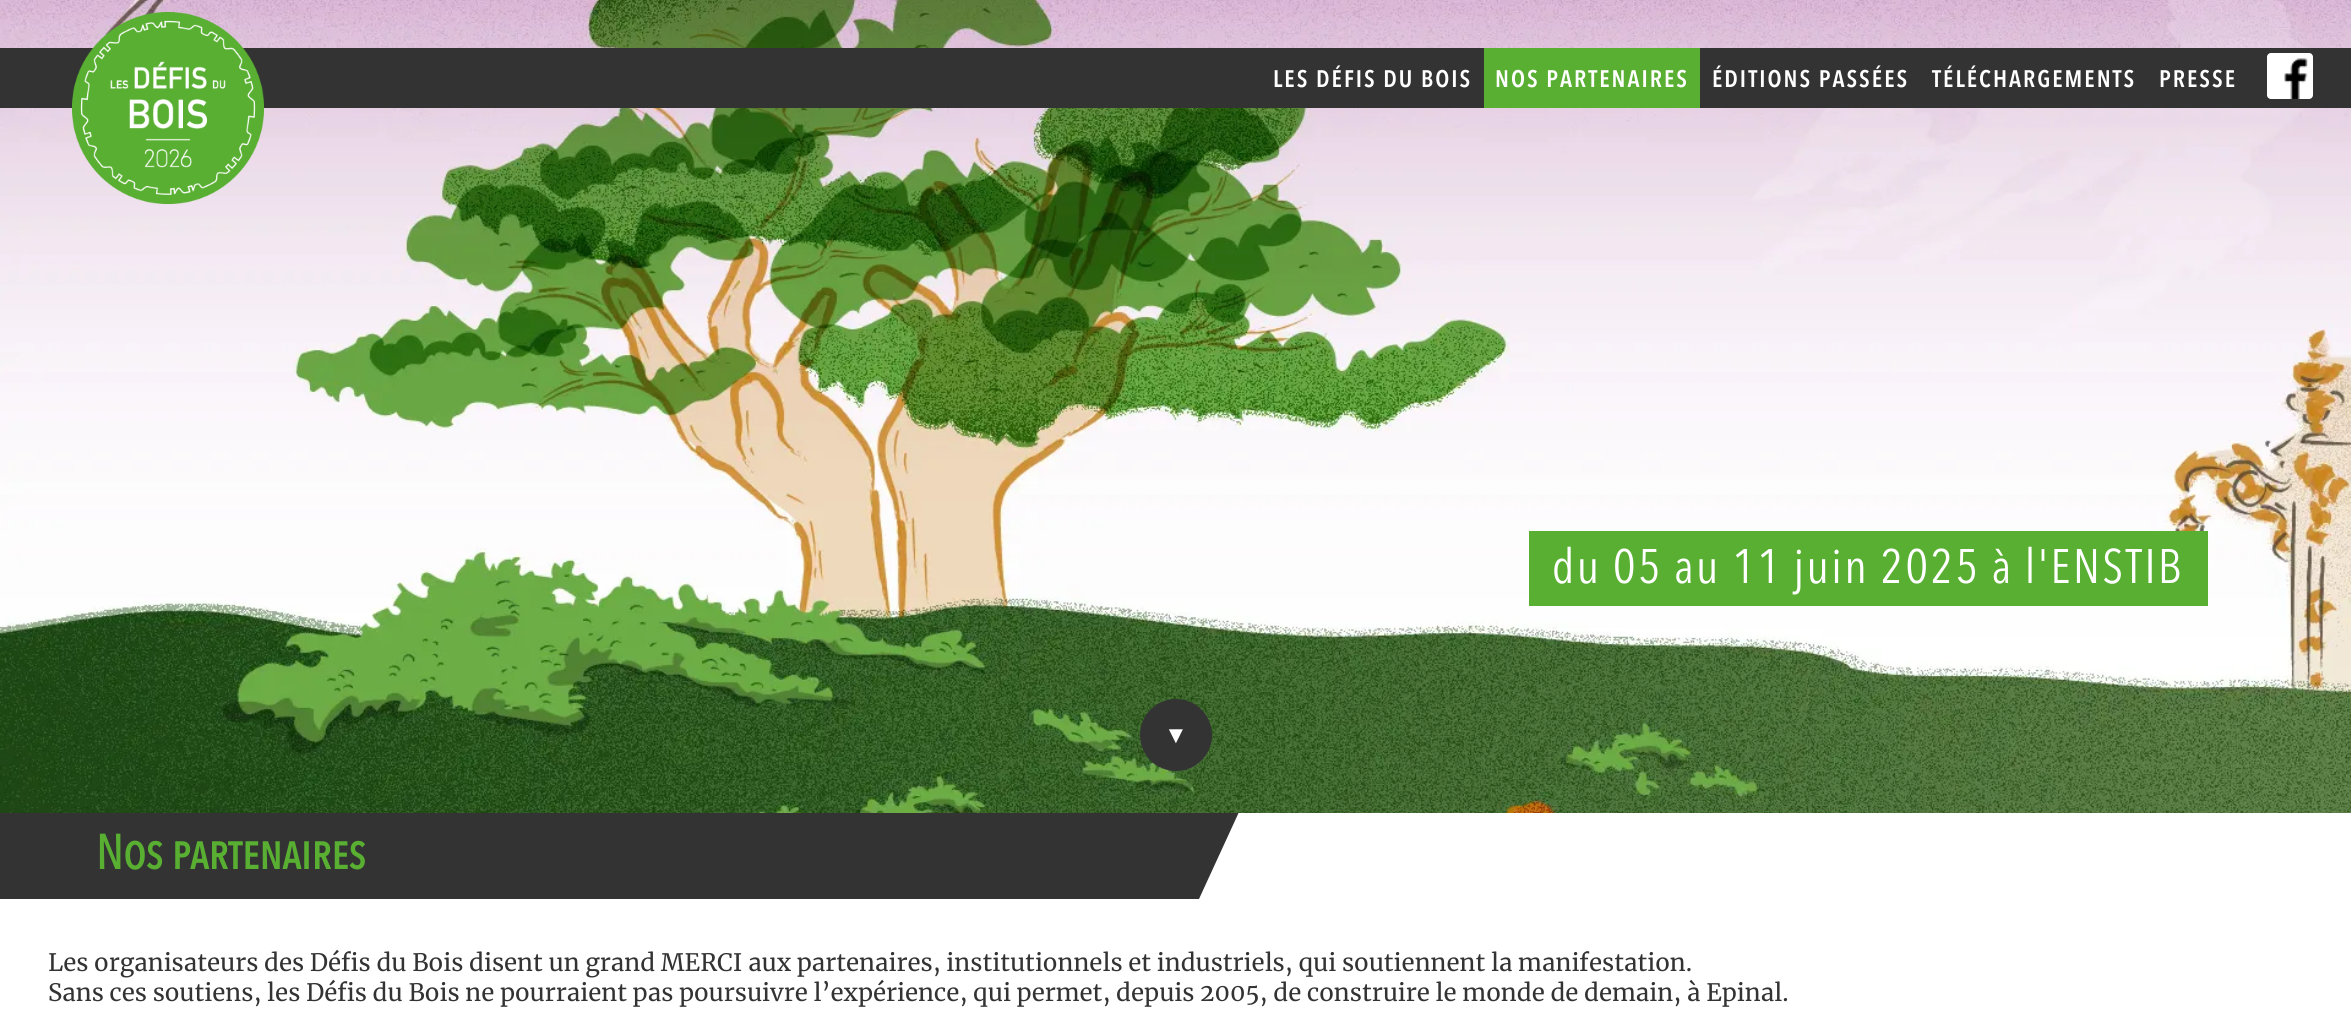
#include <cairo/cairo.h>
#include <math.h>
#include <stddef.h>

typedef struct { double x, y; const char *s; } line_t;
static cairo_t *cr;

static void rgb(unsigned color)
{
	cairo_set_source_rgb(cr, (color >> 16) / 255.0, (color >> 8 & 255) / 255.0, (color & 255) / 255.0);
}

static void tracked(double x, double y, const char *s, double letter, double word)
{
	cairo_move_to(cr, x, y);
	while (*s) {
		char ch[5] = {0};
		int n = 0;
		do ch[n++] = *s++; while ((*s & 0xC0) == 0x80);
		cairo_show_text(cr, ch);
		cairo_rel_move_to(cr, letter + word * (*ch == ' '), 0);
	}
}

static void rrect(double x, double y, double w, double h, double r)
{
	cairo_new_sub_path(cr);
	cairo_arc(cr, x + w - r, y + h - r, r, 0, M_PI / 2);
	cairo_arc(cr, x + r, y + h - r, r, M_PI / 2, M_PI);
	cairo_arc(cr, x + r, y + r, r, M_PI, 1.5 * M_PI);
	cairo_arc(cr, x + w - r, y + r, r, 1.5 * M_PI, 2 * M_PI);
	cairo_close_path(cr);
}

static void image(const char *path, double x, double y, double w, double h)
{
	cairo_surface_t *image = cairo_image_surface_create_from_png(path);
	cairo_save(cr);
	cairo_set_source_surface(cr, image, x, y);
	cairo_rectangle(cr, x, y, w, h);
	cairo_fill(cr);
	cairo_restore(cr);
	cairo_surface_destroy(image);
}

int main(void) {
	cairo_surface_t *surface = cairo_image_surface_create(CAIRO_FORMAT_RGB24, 2351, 1015);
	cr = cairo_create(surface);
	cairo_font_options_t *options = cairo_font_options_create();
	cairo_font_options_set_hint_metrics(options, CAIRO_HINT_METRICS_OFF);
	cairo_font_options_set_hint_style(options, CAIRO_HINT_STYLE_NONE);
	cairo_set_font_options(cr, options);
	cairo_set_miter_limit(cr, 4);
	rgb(0xffffff);
	cairo_paint(cr);
	rgb(0x333333);
	cairo_new_path(cr);
	cairo_move_to(cr, -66, 812);
	cairo_line_to(cr, 1239, 812);
	cairo_line_to(cr, 1199, 899);
	cairo_line_to(cr, -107, 899);
	cairo_close_path(cr);
	cairo_fill(cr);
	image("img/3.png", 0, 0, 2351, 813);
	cairo_rectangle(cr, 0, 48, 2351, 60);
	cairo_fill(cr);
	image("img/1.png", 72, 12, 192, 192);
	rgb(0xffffff);
	rrect(2267, 53, 46, 46, 4);
	cairo_fill(cr);
	rgb(0x58af31);
	cairo_rectangle(cr, 1484, 48, 216, 60);
	cairo_fill(cr);
	image("img/2.png", 2284, 58, 24, 41);
	cairo_rectangle(cr, 1529, 531, 679, 75);
	cairo_fill(cr);
	rgb(0x333333);
	cairo_arc(cr, 1176, 735, 36, 0, 2 * M_PI);
	cairo_fill(cr);
	cairo_select_font_face(cr, "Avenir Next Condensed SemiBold", CAIRO_FONT_SLANT_NORMAL, CAIRO_FONT_WEIGHT_NORMAL);
	cairo_set_font_size(cr, 23.75);
	rgb(0xffffff);
	{
		static const line_t items[] = {
			{1273, 87, "LES DÉFIS DU BOIS"},
			{1495, 87, "NOS PARTENAIRES"},
			{1712, 87, "ÉDITIONS PASSÉES"},
			{1932, 87, "TÉLÉCHARGEMENTS"},
			{2159, 87, "PRESSE"},
		};
		for (size_t i = 0; i < sizeof items / sizeof *items; i++) {
			tracked(items[i].x, items[i].y, items[i].s, 2, 0);
		}
	}
	cairo_select_font_face(cr, "Avenir Next Condensed", CAIRO_FONT_SLANT_NORMAL, CAIRO_FONT_WEIGHT_NORMAL);
	cairo_set_font_size(cr, 48);
	tracked(1552, 583, "du 05 au 11 juin 2025 à l'ENSTIB", 2.4, 0);
	cairo_select_font_face(cr, "Liberation Serif", CAIRO_FONT_SLANT_NORMAL, CAIRO_FONT_WEIGHT_NORMAL);
	cairo_set_font_size(cr, 24);
	cairo_move_to(cr, 1164, 743);
	cairo_show_text(cr, "▼");
	cairo_select_font_face(cr, "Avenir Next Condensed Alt", CAIRO_FONT_SLANT_NORMAL, CAIRO_FONT_WEIGHT_BOLD);
	cairo_set_font_size(cr, 48);
	rgb(0x58af31);
	cairo_move_to(cr, 96, 869);
	cairo_show_text(cr, "Nos partenaires");
	cairo_select_font_face(cr, "Merriweather", CAIRO_FONT_SLANT_NORMAL, CAIRO_FONT_WEIGHT_NORMAL);
	cairo_set_font_size(cr, 24);
	rgb(0x333333);
	cairo_move_to(cr, 48, 971);
	cairo_show_text(cr, "Les organisateurs des Défis du Bois disent un grand MERCI aux partenaires, institutionnels et industriels, qui soutiennent la manifestation.");
	cairo_move_to(cr, 48, 1001);
	cairo_show_text(cr, "Sans ces soutiens, les Défis du Bois ne pourraient pas poursuivre l’expérience, qui permet, depuis 2005, de construire le monde de demain, à Epinal.");
	cairo_surface_write_to_png(surface, "page.png");
	cairo_font_options_destroy(options);
	cairo_destroy(cr);
	cairo_surface_destroy(surface);
	return 0;
}
